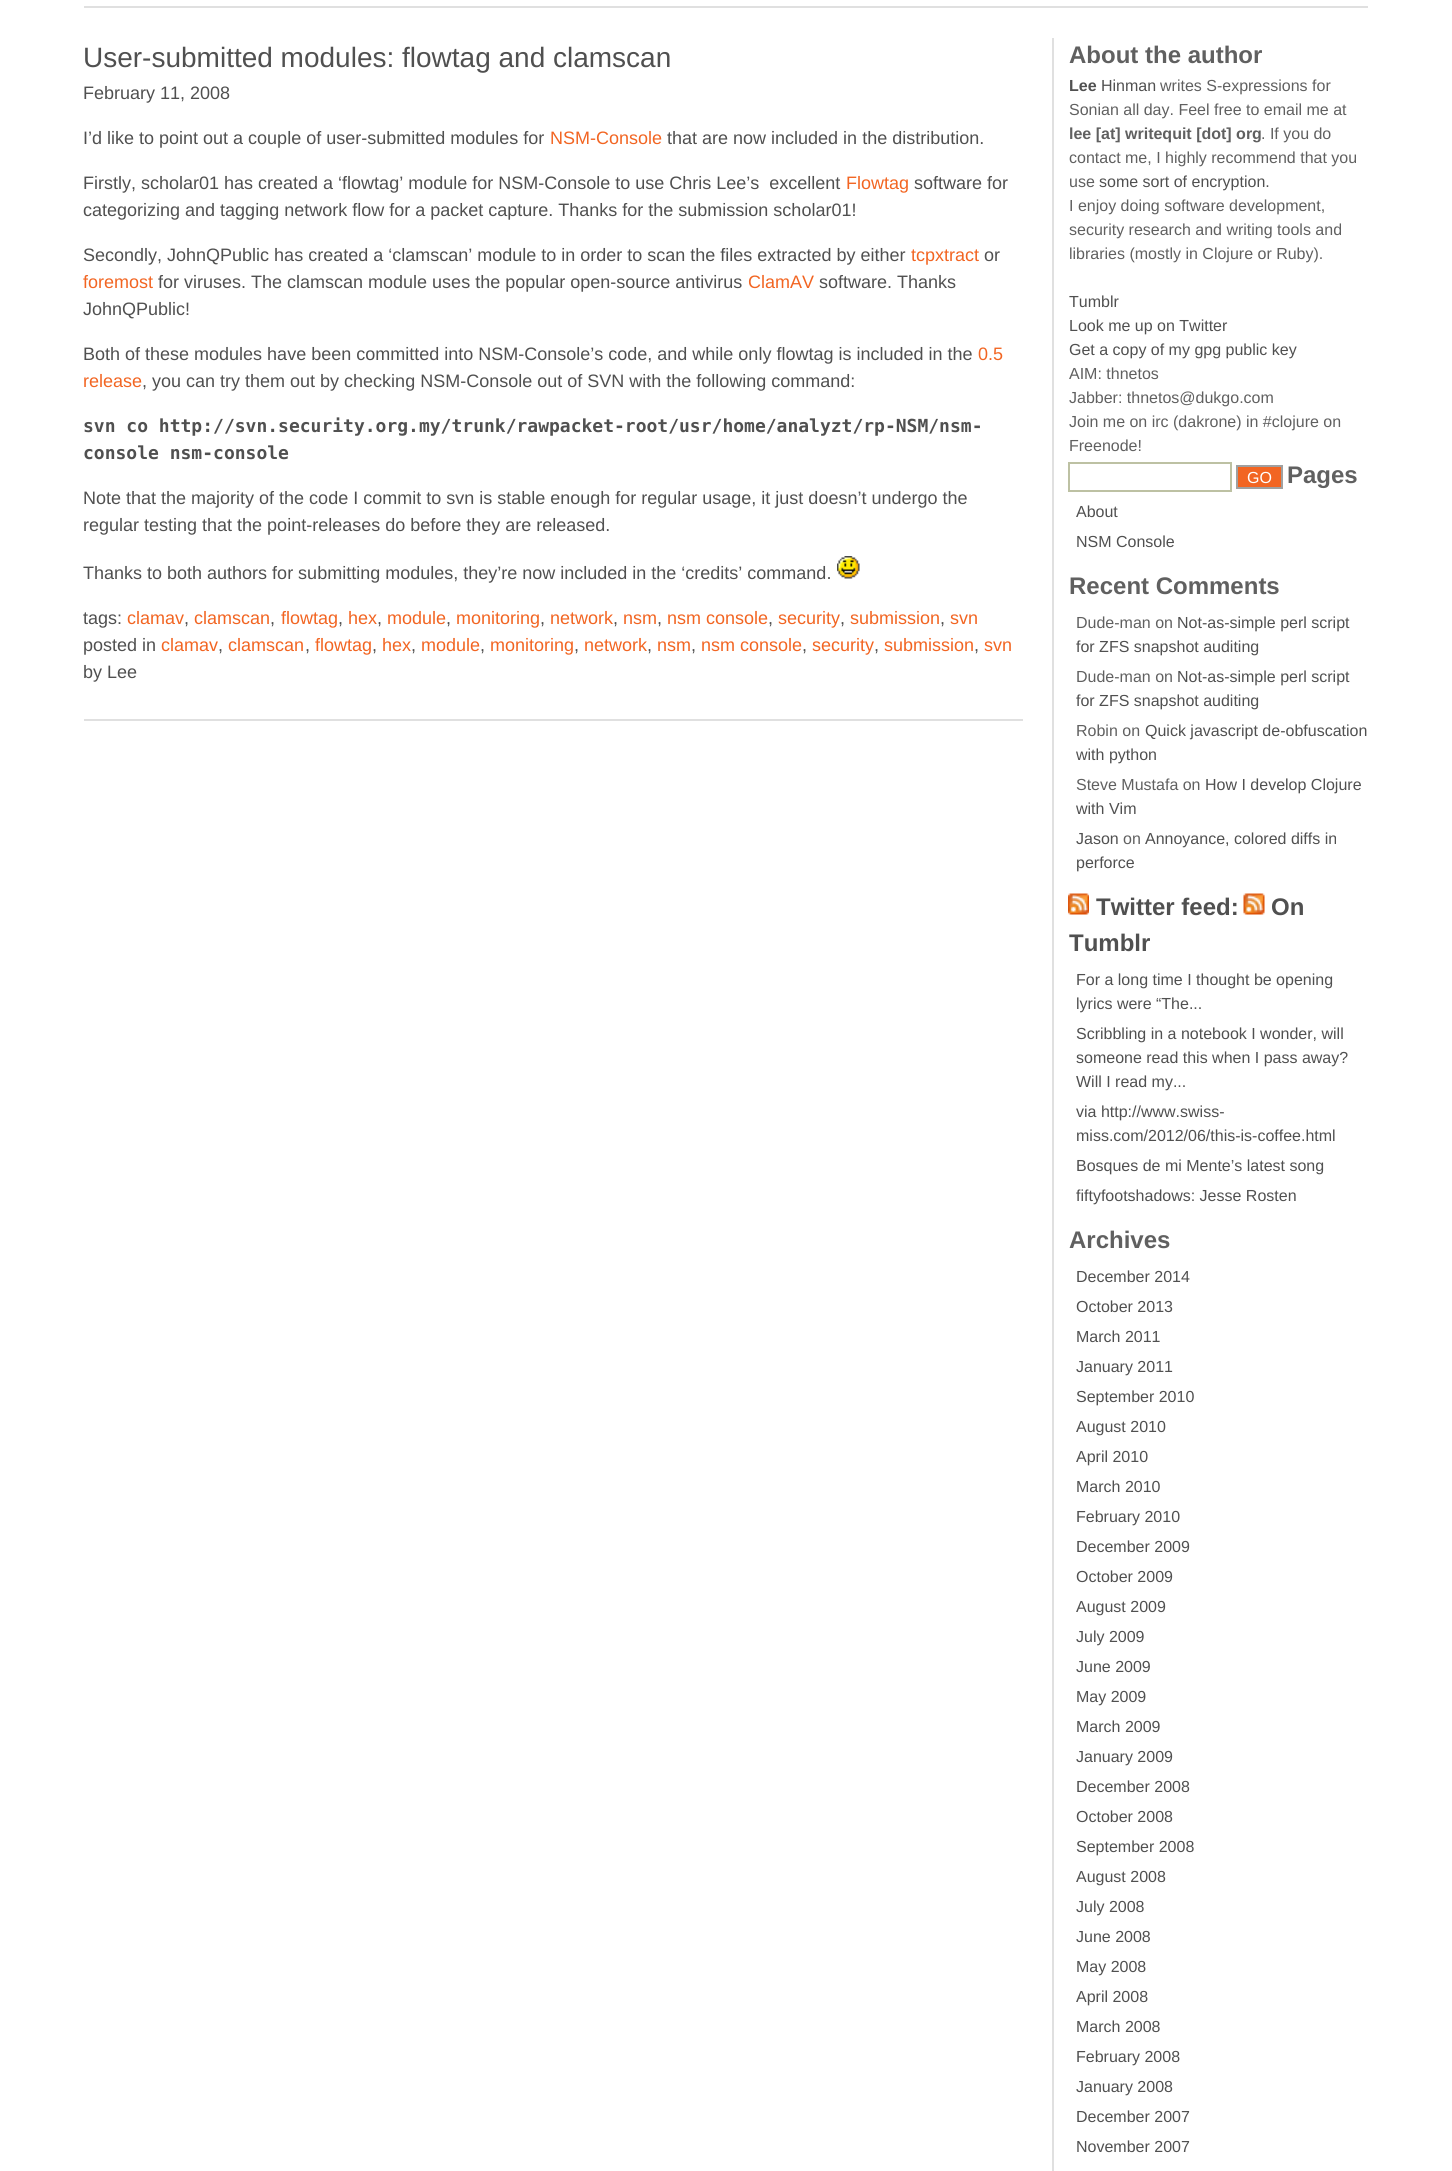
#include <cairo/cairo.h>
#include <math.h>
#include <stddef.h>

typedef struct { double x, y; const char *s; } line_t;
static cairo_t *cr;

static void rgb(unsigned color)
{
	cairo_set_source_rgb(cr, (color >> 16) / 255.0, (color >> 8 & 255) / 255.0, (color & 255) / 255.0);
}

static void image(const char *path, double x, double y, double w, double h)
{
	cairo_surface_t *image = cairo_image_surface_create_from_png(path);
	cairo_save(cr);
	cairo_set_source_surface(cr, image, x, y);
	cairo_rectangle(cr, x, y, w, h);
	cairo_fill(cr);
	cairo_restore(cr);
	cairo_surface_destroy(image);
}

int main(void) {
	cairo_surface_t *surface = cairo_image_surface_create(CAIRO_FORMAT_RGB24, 1452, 2171);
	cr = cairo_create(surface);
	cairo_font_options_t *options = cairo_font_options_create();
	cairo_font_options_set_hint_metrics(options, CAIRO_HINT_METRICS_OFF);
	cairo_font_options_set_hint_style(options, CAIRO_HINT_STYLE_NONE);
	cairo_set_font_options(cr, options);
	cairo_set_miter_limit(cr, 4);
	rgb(0xffffff);
	cairo_paint(cr);
	rgb(0xe0e0e0);
	cairo_rectangle(cr, 84, 6, 1284, 2);
	cairo_fill(cr);
	cairo_rectangle(cr, 84, 719, 939, 2);
	cairo_fill(cr);
	image("img/1.png", 837, 556, 23, 23);
	cairo_rectangle(cr, 1052, 38, 2, 2133);
	cairo_fill(cr);
	cairo_rectangle(cr, 1069, 463, 162, 28);
	rgb(0xbdc1a3);
	cairo_stroke(cr);
	rgb(0xf26522);
	cairo_rectangle(cr, 1237, 466, 45, 22);
	cairo_fill_preserve(cr);
	rgb(0xa0a0a0);
	cairo_stroke(cr);
	image("img/2.png", 1068, 893, 21, 22);
	image("img/3.png", 1243, 893, 22, 22);
	cairo_select_font_face(cr, "Liberation Sans", CAIRO_FONT_SLANT_NORMAL, CAIRO_FONT_WEIGHT_NORMAL);
	cairo_set_font_size(cr, 28);
	rgb(0x505050);
	cairo_move_to(cr, 83, 67);
	cairo_show_text(cr, "User-submitted modules: flowtag and clamscan");
	cairo_set_font_size(cr, 18);
	cairo_move_to(cr, 83, 99);
	cairo_show_text(cr, "February 11, 2008");
	cairo_move_to(cr, 83, 144);
	cairo_show_text(cr, "I’d like to point out a couple of user-submitted modules for");
	rgb(0xf26522);
	cairo_move_to(cr, 550, 144);
	cairo_show_text(cr, "NSM-Console");
	rgb(0x505050);
	cairo_move_to(cr, 667, 144);
	cairo_show_text(cr, "that are now included in the distribution.");
	cairo_move_to(cr, 83, 189);
	cairo_show_text(cr, "Firstly, scholar01 has created a ‘flowtag’ module for NSM-Console to use Chris Lee’s  excellent");
	rgb(0xf26522);
	cairo_move_to(cr, 846, 189);
	cairo_show_text(cr, "Flowtag");
	rgb(0x505050);
	{
		static const line_t items[] = {
			{914, 189, "software for"},
			{83, 216, "categorizing and tagging network flow for a packet capture. Thanks for the submission scholar01!"},
			{83, 261, "Secondly, JohnQPublic has created a ‘clamscan’ module to in order to scan the files extracted by either"},
		};
		for (size_t i = 0; i < sizeof items / sizeof *items; i++) {
			cairo_move_to(cr, items[i].x, items[i].y);
			cairo_show_text(cr, items[i].s);
		}
	}
	rgb(0xf26522);
	cairo_move_to(cr, 911, 261);
	cairo_show_text(cr, "tcpxtract");
	rgb(0x505050);
	cairo_move_to(cr, 984, 261);
	cairo_show_text(cr, "or");
	rgb(0xf26522);
	cairo_move_to(cr, 83, 288);
	cairo_show_text(cr, "foremost");
	rgb(0x505050);
	cairo_move_to(cr, 158, 288);
	cairo_show_text(cr, "for viruses. The clamscan module uses the popular open-source antivirus");
	rgb(0xf26522);
	cairo_move_to(cr, 748, 288);
	cairo_show_text(cr, "ClamAV");
	rgb(0x505050);
	{
		static const line_t items[] = {
			{819, 288, "software. Thanks"},
			{83, 315, "JohnQPublic!"},
			{83, 360, "Both of these modules have been committed into NSM-Console’s code, and while only flowtag is included in the"},
		};
		for (size_t i = 0; i < sizeof items / sizeof *items; i++) {
			cairo_move_to(cr, items[i].x, items[i].y);
			cairo_show_text(cr, items[i].s);
		}
	}
	rgb(0xf26522);
	cairo_move_to(cr, 978, 360);
	cairo_show_text(cr, "0.5");
	cairo_move_to(cr, 83, 387);
	cairo_show_text(cr, "release");
	rgb(0x505050);
	cairo_move_to(cr, 142, 387);
	cairo_show_text(cr, ", you can try them out by checking NSM-Console out of SVN with the following command:");
	cairo_select_font_face(cr, "DejaVu Sans Mono", CAIRO_FONT_SLANT_NORMAL, CAIRO_FONT_WEIGHT_BOLD);
	cairo_move_to(cr, 83, 432);
	cairo_show_text(cr, "svn co http://svn.security.org.my/trunk/rawpacket-root/usr/home/analyzt/rp-NSM/nsm-");
	cairo_move_to(cr, 83, 459);
	cairo_show_text(cr, "console nsm-console");
	cairo_select_font_face(cr, "Liberation Sans", CAIRO_FONT_SLANT_NORMAL, CAIRO_FONT_WEIGHT_NORMAL);
	{
		static const line_t items[] = {
			{83, 504, "Note that the majority of the code I commit to svn is stable enough for regular usage, it just doesn’t undergo the"},
			{83, 531, "regular testing that the point-releases do before they are released."},
			{83, 579, "Thanks to both authors for submitting modules, they’re now included in the ‘credits’ command."},
			{83, 624, "tags:"},
		};
		for (size_t i = 0; i < sizeof items / sizeof *items; i++) {
			cairo_move_to(cr, items[i].x, items[i].y);
			cairo_show_text(cr, items[i].s);
		}
	}
	rgb(0xf26522);
	cairo_move_to(cr, 127, 624);
	cairo_show_text(cr, "clamav");
	rgb(0x505050);
	cairo_move_to(cr, 184, 624);
	cairo_show_text(cr, ",");
	rgb(0xf26522);
	cairo_move_to(cr, 194, 624);
	cairo_show_text(cr, "clamscan");
	rgb(0x505050);
	cairo_move_to(cr, 270, 624);
	cairo_show_text(cr, ",");
	rgb(0xf26522);
	cairo_move_to(cr, 281, 624);
	cairo_show_text(cr, "flowtag");
	rgb(0x505050);
	cairo_move_to(cr, 338, 624);
	cairo_show_text(cr, ",");
	rgb(0xf26522);
	cairo_move_to(cr, 348, 624);
	cairo_show_text(cr, "hex");
	rgb(0x505050);
	cairo_move_to(cr, 377, 624);
	cairo_show_text(cr, ",");
	rgb(0xf26522);
	cairo_move_to(cr, 387, 624);
	cairo_show_text(cr, "module");
	rgb(0x505050);
	cairo_move_to(cr, 446, 624);
	cairo_show_text(cr, ",");
	rgb(0xf26522);
	cairo_move_to(cr, 456, 624);
	cairo_show_text(cr, "monitoring");
	rgb(0x505050);
	cairo_move_to(cr, 540, 624);
	cairo_show_text(cr, ",");
	rgb(0xf26522);
	cairo_move_to(cr, 550, 624);
	cairo_show_text(cr, "network");
	rgb(0x505050);
	cairo_move_to(cr, 613, 624);
	cairo_show_text(cr, ",");
	rgb(0xf26522);
	cairo_move_to(cr, 623, 624);
	cairo_show_text(cr, "nsm");
	rgb(0x505050);
	cairo_move_to(cr, 657, 624);
	cairo_show_text(cr, ",");
	rgb(0xf26522);
	cairo_move_to(cr, 667, 624);
	cairo_show_text(cr, "nsm console");
	rgb(0x505050);
	cairo_move_to(cr, 768, 624);
	cairo_show_text(cr, ",");
	rgb(0xf26522);
	cairo_move_to(cr, 778, 624);
	cairo_show_text(cr, "security");
	rgb(0x505050);
	cairo_move_to(cr, 840, 624);
	cairo_show_text(cr, ",");
	rgb(0xf26522);
	cairo_move_to(cr, 850, 624);
	cairo_show_text(cr, "submission");
	rgb(0x505050);
	cairo_move_to(cr, 940, 624);
	cairo_show_text(cr, ",");
	rgb(0xf26522);
	cairo_move_to(cr, 950, 624);
	cairo_show_text(cr, "svn");
	rgb(0x505050);
	cairo_move_to(cr, 83, 651);
	cairo_show_text(cr, "posted in");
	rgb(0xf26522);
	cairo_move_to(cr, 161, 651);
	cairo_show_text(cr, "clamav");
	rgb(0x505050);
	cairo_move_to(cr, 218, 651);
	cairo_show_text(cr, ",");
	rgb(0xf26522);
	cairo_move_to(cr, 228, 651);
	cairo_show_text(cr, "clamscan");
	rgb(0x505050);
	cairo_move_to(cr, 305, 651);
	cairo_show_text(cr, ",");
	rgb(0xf26522);
	cairo_move_to(cr, 315, 651);
	cairo_show_text(cr, "flowtag");
	rgb(0x505050);
	cairo_move_to(cr, 372, 651);
	cairo_show_text(cr, ",");
	rgb(0xf26522);
	cairo_move_to(cr, 382, 651);
	cairo_show_text(cr, "hex");
	rgb(0x505050);
	cairo_move_to(cr, 411, 651);
	cairo_show_text(cr, ",");
	rgb(0xf26522);
	cairo_move_to(cr, 421, 651);
	cairo_show_text(cr, "module");
	rgb(0x505050);
	cairo_move_to(cr, 480, 651);
	cairo_show_text(cr, ",");
	rgb(0xf26522);
	cairo_move_to(cr, 490, 651);
	cairo_show_text(cr, "monitoring");
	rgb(0x505050);
	cairo_move_to(cr, 574, 651);
	cairo_show_text(cr, ",");
	rgb(0xf26522);
	cairo_move_to(cr, 584, 651);
	cairo_show_text(cr, "network");
	rgb(0x505050);
	cairo_move_to(cr, 647, 651);
	cairo_show_text(cr, ",");
	rgb(0xf26522);
	cairo_move_to(cr, 657, 651);
	cairo_show_text(cr, "nsm");
	rgb(0x505050);
	cairo_move_to(cr, 691, 651);
	cairo_show_text(cr, ",");
	rgb(0xf26522);
	cairo_move_to(cr, 701, 651);
	cairo_show_text(cr, "nsm console");
	rgb(0x505050);
	cairo_move_to(cr, 802, 651);
	cairo_show_text(cr, ",");
	rgb(0xf26522);
	cairo_move_to(cr, 812, 651);
	cairo_show_text(cr, "security");
	rgb(0x505050);
	cairo_move_to(cr, 874, 651);
	cairo_show_text(cr, ",");
	rgb(0xf26522);
	cairo_move_to(cr, 884, 651);
	cairo_show_text(cr, "submission");
	rgb(0x505050);
	cairo_move_to(cr, 974, 651);
	cairo_show_text(cr, ",");
	rgb(0xf26522);
	cairo_move_to(cr, 984, 651);
	cairo_show_text(cr, "svn");
	rgb(0x505050);
	cairo_move_to(cr, 83, 678);
	cairo_show_text(cr, "by Lee");
	cairo_select_font_face(cr, "Liberation Sans", CAIRO_FONT_SLANT_NORMAL, CAIRO_FONT_WEIGHT_BOLD);
	cairo_set_font_size(cr, 24);
	rgb(0x606060);
	cairo_move_to(cr, 1069, 63);
	cairo_show_text(cr, "About the author");
	cairo_set_font_size(cr, 16);
	rgb(0x505050);
	cairo_move_to(cr, 1069, 91);
	cairo_show_text(cr, "Lee");
	cairo_select_font_face(cr, "Liberation Sans", CAIRO_FONT_SLANT_NORMAL, CAIRO_FONT_WEIGHT_NORMAL);
	cairo_move_to(cr, 1101, 91);
	cairo_show_text(cr, "Hinman");
	rgb(0x606060);
	cairo_move_to(cr, 1160, 91);
	cairo_show_text(cr, "writes S-expressions for");
	cairo_move_to(cr, 1069, 115);
	cairo_show_text(cr, "Sonian all day. Feel free to email me at");
	cairo_select_font_face(cr, "Liberation Sans", CAIRO_FONT_SLANT_NORMAL, CAIRO_FONT_WEIGHT_BOLD);
	cairo_move_to(cr, 1069, 139);
	cairo_show_text(cr, "lee [at] writequit [dot] org");
	cairo_select_font_face(cr, "Liberation Sans", CAIRO_FONT_SLANT_NORMAL, CAIRO_FONT_WEIGHT_NORMAL);
	{
		static const line_t items[] = {
			{1261, 139, ". If you do"},
			{1069, 163, "contact me, I highly recommend that you"},
			{1069, 187, "use"},
		};
		for (size_t i = 0; i < sizeof items / sizeof *items; i++) {
			cairo_move_to(cr, items[i].x, items[i].y);
			cairo_show_text(cr, items[i].s);
		}
	}
	rgb(0x505050);
	cairo_move_to(cr, 1099, 187);
	cairo_show_text(cr, "some sort of encryption.");
	rgb(0x606060);
	{
		static const line_t items[] = {
			{1069, 211, "I enjoy doing software development,"},
			{1069, 235, "security research and writing tools and"},
			{1069, 259, "libraries (mostly in Clojure or Ruby)."},
		};
		for (size_t i = 0; i < sizeof items / sizeof *items; i++) {
			cairo_move_to(cr, items[i].x, items[i].y);
			cairo_show_text(cr, items[i].s);
		}
	}
	rgb(0x505050);
	{
		static const line_t items[] = {
			{1069, 307, "Tumblr"},
			{1069, 331, "Look me up on Twitter"},
			{1069, 355, "Get a copy of my gpg public key"},
		};
		for (size_t i = 0; i < sizeof items / sizeof *items; i++) {
			cairo_move_to(cr, items[i].x, items[i].y);
			cairo_show_text(cr, items[i].s);
		}
	}
	rgb(0x606060);
	{
		static const line_t items[] = {
			{1069, 379, "AIM: thnetos"},
			{1069, 403, "Jabber: thnetos@dukgo.com"},
			{1069, 427, "Join me on irc (dakrone) in #clojure on"},
			{1069, 451, "Freenode!"},
		};
		for (size_t i = 0; i < sizeof items / sizeof *items; i++) {
			cairo_move_to(cr, items[i].x, items[i].y);
			cairo_show_text(cr, items[i].s);
		}
	}
	cairo_select_font_face(cr, "Liberation Sans", CAIRO_FONT_SLANT_NORMAL, CAIRO_FONT_WEIGHT_BOLD);
	cairo_set_font_size(cr, 24);
	cairo_move_to(cr, 1287, 483);
	cairo_show_text(cr, "Pages");
	cairo_select_font_face(cr, "Liberation Sans", CAIRO_FONT_SLANT_NORMAL, CAIRO_FONT_WEIGHT_NORMAL);
	cairo_set_font_size(cr, 16);
	rgb(0x505050);
	cairo_move_to(cr, 1076, 517);
	cairo_show_text(cr, "About");
	cairo_move_to(cr, 1076, 547);
	cairo_show_text(cr, "NSM Console");
	rgb(0xffffff);
	cairo_move_to(cr, 1247, 483);
	cairo_show_text(cr, "GO");
	cairo_select_font_face(cr, "Liberation Sans", CAIRO_FONT_SLANT_NORMAL, CAIRO_FONT_WEIGHT_BOLD);
	cairo_set_font_size(cr, 24);
	rgb(0x606060);
	cairo_move_to(cr, 1069, 594);
	cairo_show_text(cr, "Recent Comments");
	cairo_select_font_face(cr, "Liberation Sans", CAIRO_FONT_SLANT_NORMAL, CAIRO_FONT_WEIGHT_NORMAL);
	cairo_set_font_size(cr, 16);
	cairo_move_to(cr, 1076, 628);
	cairo_show_text(cr, "Dude-man on");
	rgb(0x505050);
	cairo_move_to(cr, 1177, 628);
	cairo_show_text(cr, "Not-as-simple perl script");
	cairo_move_to(cr, 1076, 652);
	cairo_show_text(cr, "for ZFS snapshot auditing");
	rgb(0x606060);
	cairo_move_to(cr, 1076, 682);
	cairo_show_text(cr, "Dude-man on");
	rgb(0x505050);
	cairo_move_to(cr, 1177, 682);
	cairo_show_text(cr, "Not-as-simple perl script");
	cairo_move_to(cr, 1076, 706);
	cairo_show_text(cr, "for ZFS snapshot auditing");
	rgb(0x606060);
	cairo_move_to(cr, 1076, 736);
	cairo_show_text(cr, "Robin on");
	rgb(0x505050);
	cairo_move_to(cr, 1145, 736);
	cairo_show_text(cr, "Quick javascript de-obfuscation");
	cairo_move_to(cr, 1076, 760);
	cairo_show_text(cr, "with python");
	rgb(0x606060);
	cairo_move_to(cr, 1076, 790);
	cairo_show_text(cr, "Steve Mustafa on");
	rgb(0x505050);
	{
		static const line_t items[] = {
			{1205, 790, "How I develop Clojure"},
			{1076, 814, "with Vim"},
			{1076, 844, "Jason"},
		};
		for (size_t i = 0; i < sizeof items / sizeof *items; i++) {
			cairo_move_to(cr, items[i].x, items[i].y);
			cairo_show_text(cr, items[i].s);
		}
	}
	rgb(0x606060);
	cairo_move_to(cr, 1123, 844);
	cairo_show_text(cr, "on");
	rgb(0x505050);
	cairo_move_to(cr, 1145, 844);
	cairo_show_text(cr, "Annoyance, colored diffs in");
	cairo_move_to(cr, 1076, 868);
	cairo_show_text(cr, "perforce");
	cairo_select_font_face(cr, "Liberation Sans", CAIRO_FONT_SLANT_NORMAL, CAIRO_FONT_WEIGHT_BOLD);
	cairo_set_font_size(cr, 24);
	{
		static const line_t items[] = {
			{1096, 915, "Twitter feed:"},
			{1271, 915, "On"},
			{1069, 951, "Tumblr"},
		};
		for (size_t i = 0; i < sizeof items / sizeof *items; i++) {
			cairo_move_to(cr, items[i].x, items[i].y);
			cairo_show_text(cr, items[i].s);
		}
	}
	cairo_select_font_face(cr, "Liberation Sans", CAIRO_FONT_SLANT_NORMAL, CAIRO_FONT_WEIGHT_NORMAL);
	cairo_set_font_size(cr, 16);
	{
		static const line_t items[] = {
			{1076, 985, "For a long time I thought be opening"},
			{1076, 1009, "lyrics were “The..."},
			{1076, 1039, "Scribbling in a notebook I wonder, will"},
			{1076, 1063, "someone read this when I pass away?"},
			{1076, 1087, "Will I read my..."},
			{1076, 1117, "via http://www.swiss-"},
			{1076, 1141, "miss.com/2012/06/this-is-coffee.html"},
			{1076, 1171, "Bosques de mi Mente’s latest song"},
			{1076, 1201, "fiftyfootshadows: Jesse Rosten"},
		};
		for (size_t i = 0; i < sizeof items / sizeof *items; i++) {
			cairo_move_to(cr, items[i].x, items[i].y);
			cairo_show_text(cr, items[i].s);
		}
	}
	cairo_select_font_face(cr, "Liberation Sans", CAIRO_FONT_SLANT_NORMAL, CAIRO_FONT_WEIGHT_BOLD);
	cairo_set_font_size(cr, 24);
	rgb(0x606060);
	cairo_move_to(cr, 1069, 1248);
	cairo_show_text(cr, "Archives");
	cairo_select_font_face(cr, "Liberation Sans", CAIRO_FONT_SLANT_NORMAL, CAIRO_FONT_WEIGHT_NORMAL);
	cairo_set_font_size(cr, 16);
	rgb(0x505050);
	{
		static const line_t items[] = {
			{1076, 1282, "December 2014"},
			{1076, 1312, "October 2013"},
			{1076, 1342, "March 2011"},
			{1076, 1372, "January 2011"},
			{1076, 1402, "September 2010"},
			{1076, 1432, "August 2010"},
			{1076, 1462, "April 2010"},
			{1076, 1492, "March 2010"},
			{1076, 1522, "February 2010"},
			{1076, 1552, "December 2009"},
			{1076, 1582, "October 2009"},
			{1076, 1612, "August 2009"},
			{1076, 1642, "July 2009"},
			{1076, 1672, "June 2009"},
			{1076, 1702, "May 2009"},
			{1076, 1732, "March 2009"},
			{1076, 1762, "January 2009"},
			{1076, 1792, "December 2008"},
			{1076, 1822, "October 2008"},
			{1076, 1852, "September 2008"},
			{1076, 1882, "August 2008"},
			{1076, 1912, "July 2008"},
			{1076, 1942, "June 2008"},
			{1076, 1972, "May 2008"},
			{1076, 2002, "April 2008"},
			{1076, 2032, "March 2008"},
			{1076, 2062, "February 2008"},
			{1076, 2092, "January 2008"},
			{1076, 2122, "December 2007"},
			{1076, 2152, "November 2007"},
		};
		for (size_t i = 0; i < sizeof items / sizeof *items; i++) {
			cairo_move_to(cr, items[i].x, items[i].y);
			cairo_show_text(cr, items[i].s);
		}
	}
	cairo_surface_write_to_png(surface, "page.png");
	cairo_font_options_destroy(options);
	cairo_destroy(cr);
	cairo_surface_destroy(surface);
	return 0;
}
